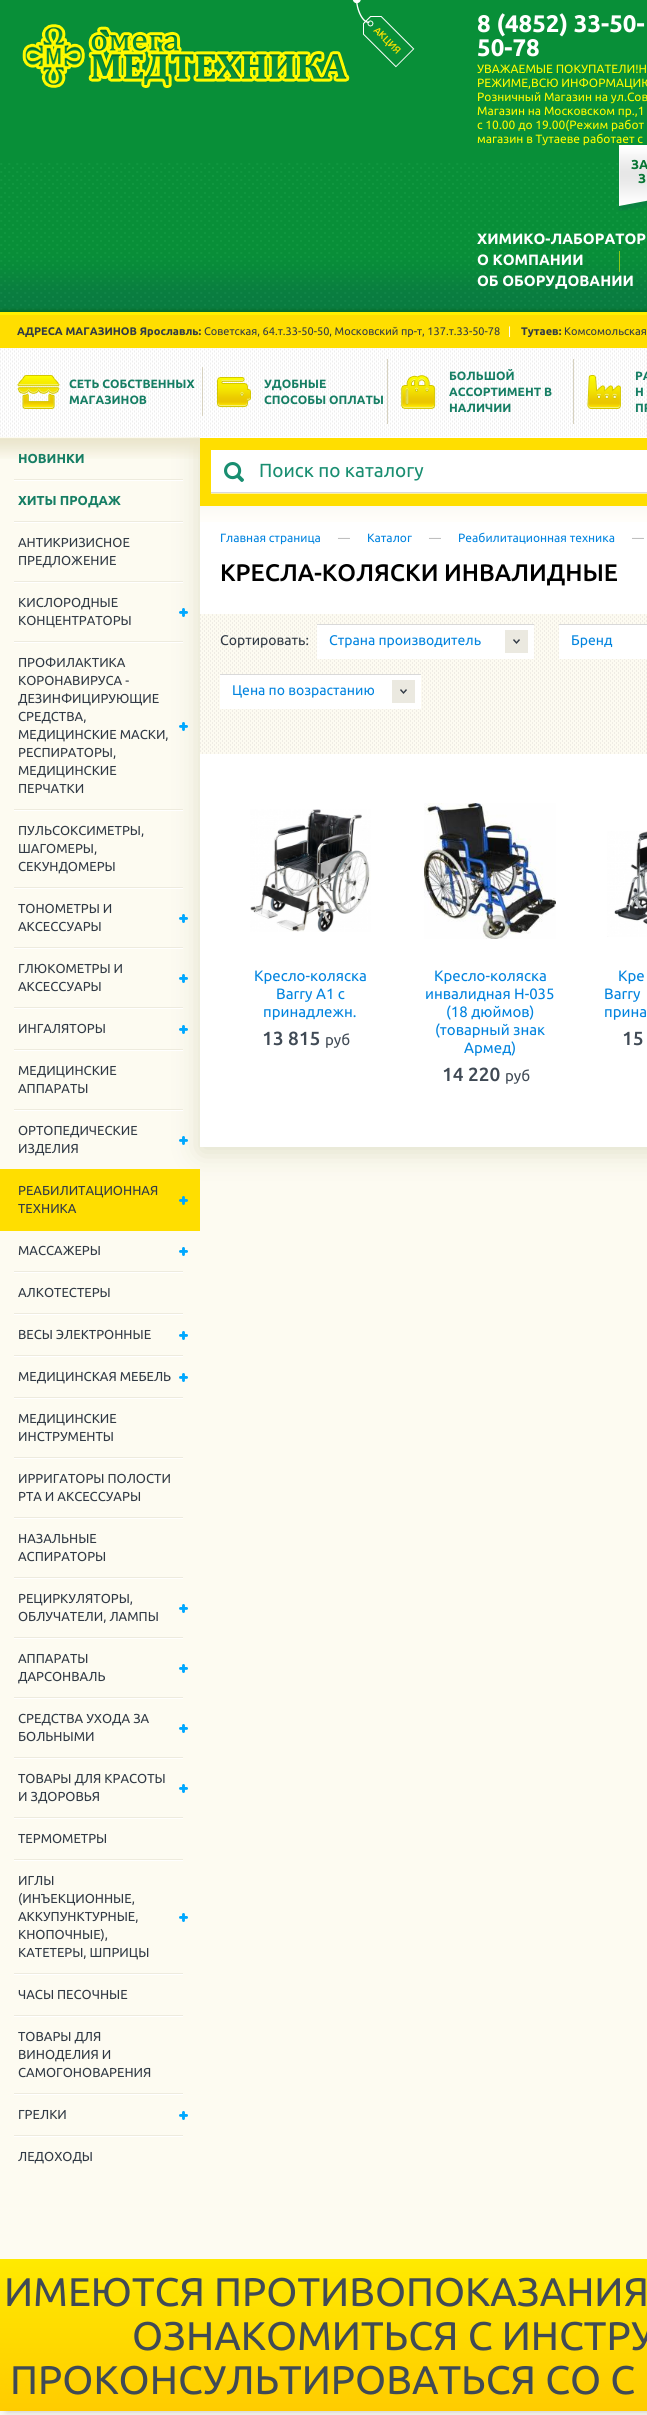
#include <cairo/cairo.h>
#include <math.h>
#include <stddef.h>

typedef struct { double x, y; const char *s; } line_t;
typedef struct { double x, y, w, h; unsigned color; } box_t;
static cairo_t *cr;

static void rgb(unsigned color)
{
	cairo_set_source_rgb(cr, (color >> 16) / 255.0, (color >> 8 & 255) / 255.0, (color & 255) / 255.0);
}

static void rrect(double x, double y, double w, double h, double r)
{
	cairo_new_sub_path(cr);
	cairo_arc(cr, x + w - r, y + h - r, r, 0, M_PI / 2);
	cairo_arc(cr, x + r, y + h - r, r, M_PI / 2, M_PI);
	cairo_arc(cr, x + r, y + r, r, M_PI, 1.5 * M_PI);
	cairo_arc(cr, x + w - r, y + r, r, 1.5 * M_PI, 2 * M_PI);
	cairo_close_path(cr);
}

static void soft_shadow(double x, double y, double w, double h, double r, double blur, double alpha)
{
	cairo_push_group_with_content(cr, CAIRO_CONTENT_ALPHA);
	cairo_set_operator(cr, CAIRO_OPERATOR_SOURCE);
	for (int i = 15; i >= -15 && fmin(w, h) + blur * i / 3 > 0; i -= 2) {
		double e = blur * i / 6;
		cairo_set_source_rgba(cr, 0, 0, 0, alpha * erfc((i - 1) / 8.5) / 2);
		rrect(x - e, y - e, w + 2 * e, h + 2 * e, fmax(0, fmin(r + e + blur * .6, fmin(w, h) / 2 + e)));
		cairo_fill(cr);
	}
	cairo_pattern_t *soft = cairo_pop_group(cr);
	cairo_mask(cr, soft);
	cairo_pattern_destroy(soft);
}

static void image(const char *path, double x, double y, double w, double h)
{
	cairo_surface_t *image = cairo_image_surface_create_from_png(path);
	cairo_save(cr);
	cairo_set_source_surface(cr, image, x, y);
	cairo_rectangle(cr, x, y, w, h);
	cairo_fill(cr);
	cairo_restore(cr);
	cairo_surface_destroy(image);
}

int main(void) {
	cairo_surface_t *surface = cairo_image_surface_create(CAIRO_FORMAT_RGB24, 647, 2415);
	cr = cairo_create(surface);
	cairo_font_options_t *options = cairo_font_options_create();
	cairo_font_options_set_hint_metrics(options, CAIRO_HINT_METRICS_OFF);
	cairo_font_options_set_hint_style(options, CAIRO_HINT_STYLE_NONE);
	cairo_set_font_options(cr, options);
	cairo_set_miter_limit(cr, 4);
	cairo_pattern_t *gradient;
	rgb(0xfdfbf1);
	cairo_paint(cr);
	rgb(0x088f38);
	cairo_rectangle(cr, 0, 0, 647, 163);
	cairo_fill(cr);
	image("img/1.png", 0, 163, 647, 149);
	rgb(0xfff100);
	cairo_rectangle(cr, 0, 312, 647, 3);
	cairo_fill(cr);
	image("img/2.png", 22, 24, 328, 64);
	image("img/3.png", 352, 0, 63, 68);
	cairo_set_source_rgba(cr, 1, 0.988, 0, 0.54);
	cairo_rectangle(cr, 619, 251, 1, 21);
	cairo_fill(cr);
	rgb(0xffde00);
	cairo_rectangle(cr, 0, 315, 647, 33);
	cairo_fill(cr);
	rgb(0xdfdfca);
	soft_shadow(200, 442, 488, 710, 0, 13.5, 1);
	image("img/5.png", 0, 348, 647, 89);
	image("img/6.png", 17, 375, 43, 34);
	rgb(0xd7d2c0);
	cairo_rectangle(cr, 202, 367, 1, 49);
	cairo_fill(cr);
	image("img/7.png", 217, 377, 34, 31);
	cairo_rectangle(cr, 387, 359, 1, 65);
	cairo_fill(cr);
	image("img/8.png", 401, 375, 35, 34);
	cairo_rectangle(cr, 573, 359, 1, 65);
	cairo_fill(cr);
	image("img/9.png", 587, 375, 34, 34);
	image("img/10.png", 0, 438, 200, 21);
	{
		static const box_t items[] = {
			{14, 479, 169, 1, 0xeeebde},
			{14, 480, 169, 1, 0xffffff},
			{14, 521, 169, 1, 0xeeebde},
			{14, 522, 169, 1, 0xffffff},
			{14, 581, 169, 1, 0xeeebde},
			{14, 582, 169, 1, 0xffffff},
		};
		for (size_t i = 0; i < sizeof items / sizeof *items; i++) {
			rgb(items[i].color);
			cairo_rectangle(cr, items[i].x, items[i].y, items[i].w, items[i].h);
			cairo_fill(cr);
		}
	}
	image("img/11.png", 179, 608, 9, 9);
	rgb(0xeeebde);
	cairo_rectangle(cr, 14, 641, 169, 1);
	cairo_fill(cr);
	rgb(0xffffff);
	cairo_rectangle(cr, 14, 642, 169, 1);
	cairo_fill(cr);
	image("img/11.png", 179, 722, 9, 9);
	{
		static const box_t items[] = {
			{14, 809, 169, 1, 0xeeebde},
			{14, 810, 169, 1, 0xffffff},
			{14, 887, 169, 1, 0xeeebde},
			{14, 888, 169, 1, 0xffffff},
		};
		for (size_t i = 0; i < sizeof items / sizeof *items; i++) {
			rgb(items[i].color);
			cairo_rectangle(cr, items[i].x, items[i].y, items[i].w, items[i].h);
			cairo_fill(cr);
		}
	}
	image("img/11.png", 179, 914, 9, 9);
	rgb(0xeeebde);
	cairo_rectangle(cr, 14, 947, 169, 1);
	cairo_fill(cr);
	rgb(0xffffff);
	cairo_rectangle(cr, 14, 948, 169, 1);
	cairo_fill(cr);
	image("img/11.png", 179, 974, 9, 9);
	rgb(0xeeebde);
	cairo_rectangle(cr, 14, 1007, 169, 1);
	cairo_fill(cr);
	rgb(0xffffff);
	cairo_rectangle(cr, 14, 1008, 169, 1);
	cairo_fill(cr);
	image("img/11.png", 179, 1025, 9, 9);
	{
		static const box_t items[] = {
			{14, 1049, 169, 1, 0xeeebde},
			{14, 1050, 169, 1, 0xffffff},
			{14, 1109, 169, 1, 0xeeebde},
			{14, 1110, 169, 1, 0xffffff},
		};
		for (size_t i = 0; i < sizeof items / sizeof *items; i++) {
			rgb(items[i].color);
			cairo_rectangle(cr, items[i].x, items[i].y, items[i].w, items[i].h);
			cairo_fill(cr);
		}
	}
	image("img/12.png", 179, 1136, 9, 9);
	rgb(0xffde00);
	cairo_rectangle(cr, 0, 1169, 200, 62);
	cairo_fill(cr);
	image("img/13.png", 179, 1196, 9, 9);
	image("img/14.png", 179, 1247, 9, 9);
	{
		static const box_t items[] = {
			{14, 1271, 169, 1, 0xeeebde},
			{14, 1272, 169, 1, 0xffffff},
			{14, 1313, 169, 1, 0xeeebde},
			{14, 1314, 169, 1, 0xffffff},
		};
		for (size_t i = 0; i < sizeof items / sizeof *items; i++) {
			rgb(items[i].color);
			cairo_rectangle(cr, items[i].x, items[i].y, items[i].w, items[i].h);
			cairo_fill(cr);
		}
	}
	image("img/14.png", 179, 1331, 9, 9);
	rgb(0xeeebde);
	cairo_rectangle(cr, 14, 1355, 169, 1);
	cairo_fill(cr);
	rgb(0xffffff);
	cairo_rectangle(cr, 14, 1356, 169, 1);
	cairo_fill(cr);
	image("img/14.png", 179, 1373, 9, 9);
	{
		static const box_t items[] = {
			{14, 1397, 169, 1, 0xeeebde},
			{14, 1398, 169, 1, 0xffffff},
			{14, 1457, 169, 1, 0xeeebde},
			{14, 1458, 169, 1, 0xffffff},
			{14, 1517, 169, 1, 0xeeebde},
			{14, 1518, 169, 1, 0xffffff},
			{14, 1577, 169, 1, 0xeeebde},
			{14, 1578, 169, 1, 0xffffff},
		};
		for (size_t i = 0; i < sizeof items / sizeof *items; i++) {
			rgb(items[i].color);
			cairo_rectangle(cr, items[i].x, items[i].y, items[i].w, items[i].h);
			cairo_fill(cr);
		}
	}
	image("img/14.png", 179, 1604, 9, 9);
	rgb(0xeeebde);
	cairo_rectangle(cr, 14, 1637, 169, 1);
	cairo_fill(cr);
	rgb(0xffffff);
	cairo_rectangle(cr, 14, 1638, 169, 1);
	cairo_fill(cr);
	image("img/14.png", 179, 1664, 9, 9);
	rgb(0xeeebde);
	cairo_rectangle(cr, 14, 1697, 169, 1);
	cairo_fill(cr);
	rgb(0xffffff);
	cairo_rectangle(cr, 14, 1698, 169, 1);
	cairo_fill(cr);
	image("img/14.png", 179, 1724, 9, 9);
	rgb(0xeeebde);
	cairo_rectangle(cr, 14, 1757, 169, 1);
	cairo_fill(cr);
	rgb(0xffffff);
	cairo_rectangle(cr, 14, 1758, 169, 1);
	cairo_fill(cr);
	image("img/14.png", 179, 1784, 9, 9);
	{
		static const box_t items[] = {
			{14, 1817, 169, 1, 0xeeebde},
			{14, 1818, 169, 1, 0xffffff},
			{14, 1859, 169, 1, 0xeeebde},
			{14, 1860, 169, 1, 0xffffff},
		};
		for (size_t i = 0; i < sizeof items / sizeof *items; i++) {
			rgb(items[i].color);
			cairo_rectangle(cr, items[i].x, items[i].y, items[i].w, items[i].h);
			cairo_fill(cr);
		}
	}
	image("img/14.png", 179, 1913, 9, 9);
	{
		static const box_t items[] = {
			{14, 1973, 169, 1, 0xeeebde},
			{14, 1974, 169, 1, 0xffffff},
			{14, 2015, 169, 1, 0xeeebde},
			{14, 2016, 169, 1, 0xffffff},
			{14, 2093, 169, 1, 0xeeebde},
			{14, 2094, 169, 1, 0xffffff},
		};
		for (size_t i = 0; i < sizeof items / sizeof *items; i++) {
			rgb(items[i].color);
			cairo_rectangle(cr, items[i].x, items[i].y, items[i].w, items[i].h);
			cairo_fill(cr);
		}
	}
	image("img/14.png", 179, 2111, 9, 9);
	{
		static const box_t items[] = {
			{14, 2135, 169, 1, 0xeeebde},
			{14, 2136, 169, 1, 0xffffff},
			{200, 437, 447, 710, 0xffffff},
		};
		for (size_t i = 0; i < sizeof items / sizeof *items; i++) {
			rgb(items[i].color);
			cairo_rectangle(cr, items[i].x, items[i].y, items[i].w, items[i].h);
			cairo_fill(cr);
		}
	}
	image("img/15.png", 200, 506, 447, 16);
	{
		static const box_t items[] = {
			{200, 438, 447, 68, 0xffde00},
			{211, 493, 436, 1, 0xfff299},
			{211, 450, 436, 42, 0xffffff},
		};
		for (size_t i = 0; i < sizeof items / sizeof *items; i++) {
			rgb(items[i].color);
			cairo_rectangle(cr, items[i].x, items[i].y, items[i].w, items[i].h);
			cairo_fill(cr);
		}
	}
	image("img/16.png", 224, 462, 20, 20);
	rgb(0xd9d9d9);
	cairo_rectangle(cr, 211, 492, 436, 1);
	cairo_fill(cr);
	rgb(0xfdfbf1);
	cairo_rectangle(cr, 200, 614, 447, 140);
	cairo_fill(cr);
	image("img/17.png", 200, 614, 447, 140);
	{
		static const box_t items[] = {
			{317, 625, 217, 34, 0xffffff},
			{317, 624, 217, 1, 0xd9d9d9},
			{505, 630, 23, 23, 0xebe9e0},
		};
		for (size_t i = 0; i < sizeof items / sizeof *items; i++) {
			rgb(items[i].color);
			cairo_rectangle(cr, items[i].x, items[i].y, items[i].w, items[i].h);
			cairo_fill(cr);
		}
	}
	image("img/18.png", 513, 639, 7, 5);
	{
		static const box_t items[] = {
			{559, 625, 88, 34, 0xffffff},
			{559, 624, 88, 1, 0xd9d9d9},
			{220, 675, 201, 34, 0xffffff},
			{220, 674, 201, 1, 0xd9d9d9},
			{392, 680, 23, 23, 0xebe9e0},
		};
		for (size_t i = 0; i < sizeof items / sizeof *items; i++) {
			rgb(items[i].color);
			cairo_rectangle(cr, items[i].x, items[i].y, items[i].w, items[i].h);
			cairo_fill(cr);
		}
	}
	image("img/18.png", 400, 689, 7, 5);
	image("img/19.png", 250, 809, 121, 123);
	image("img/20.png", 424, 803, 132, 136);
	image("img/21.png", 607, 831, 40, 106);
	rgb(0xf9f8f3);
	cairo_rectangle(cr, 0, 2411, 647, 4);
	cairo_fill(cr);
	rgb(0x515050);
	soft_shadow(7, 2273, 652, 138, 0, 4, 0.34);
	gradient = cairo_pattern_create_linear(480, 2259, 480, 2411);
	cairo_pattern_add_color_stop_rgba(gradient, 0, 1, 0.918, 0, 1);
	cairo_pattern_add_color_stop_rgba(gradient, 1, 1, 0.8, 0, 1);
	cairo_set_source(cr, gradient);
	cairo_pattern_destroy(gradient);
	cairo_rectangle(cr, 0, 2259, 647, 152);
	cairo_fill(cr);
	cairo_select_font_face(cr, "Ubuntu", CAIRO_FONT_SLANT_NORMAL, CAIRO_FONT_WEIGHT_BOLD);
	cairo_set_font_size(cr, 24);
	rgb(0xffffff);
	cairo_move_to(cr, 477, 32);
	cairo_show_text(cr, "8 (4852) 33-50-");
	cairo_move_to(cr, 477, 56);
	cairo_show_text(cr, "50-78");
	cairo_select_font_face(cr, "Ubuntu", CAIRO_FONT_SLANT_NORMAL, CAIRO_FONT_WEIGHT_NORMAL);
	cairo_set_font_size(cr, 12);
	rgb(0xfffc00);
	{
		static const line_t items[] = {
			{477, 73, "УВАЖАЕМЫЕ ПОКУПАТЕЛИ!Н"},
			{477, 87, "РЕЖИМЕ,ВСЮ ИНФОРМАЦИЮ"},
			{477, 101, "Розничный Магазин на ул.Сов"},
			{477, 115, "Магазин на Московском пр.,1"},
			{477, 129, "с 10.00 до 19.00(Режим работ"},
			{477, 143, "магазин в Тутаеве работает с"},
		};
		for (size_t i = 0; i < sizeof items / sizeof *items; i++) {
			cairo_move_to(cr, items[i].x, items[i].y);
			cairo_show_text(cr, items[i].s);
		}
	}
	image("img/4.png", 618, 145, 29, 66);
	cairo_select_font_face(cr, "Ubuntu", CAIRO_FONT_SLANT_NORMAL, CAIRO_FONT_WEIGHT_BOLD);
	cairo_set_font_size(cr, 13);
	rgb(0x077534);
	cairo_move_to(cr, 631, 169);
	cairo_show_text(cr, "ЗА");
	cairo_move_to(cr, 638, 183);
	cairo_show_text(cr, "З");
	cairo_set_font_size(cr, 15);
	rgb(0xffffff);
	{
		static const line_t items[] = {
			{477, 244, "ХИМИКО-ЛАБОРАТОР"},
			{477, 265, "О КОМПАНИИ"},
			{477, 286, "ОБ ОБОРУДОВАНИИ"},
		};
		for (size_t i = 0; i < sizeof items / sizeof *items; i++) {
			cairo_move_to(cr, items[i].x, items[i].y);
			cairo_show_text(cr, items[i].s);
		}
	}
	cairo_set_font_size(cr, 11);
	rgb(0x313a45);
	cairo_move_to(cr, 17, 335);
	cairo_show_text(cr, "АДРЕСА МАГАЗИНОВ Ярославль:");
	cairo_select_font_face(cr, "Ubuntu", CAIRO_FONT_SLANT_NORMAL, CAIRO_FONT_WEIGHT_NORMAL);
	cairo_move_to(cr, 204, 335);
	cairo_show_text(cr, "Советская, 64.т.33-50-50, Московский пр-т, 137.т.33-50-78");
	rgb(0xffffff);
	cairo_move_to(cr, 508, 335);
	cairo_show_text(cr, "|");
	cairo_select_font_face(cr, "Ubuntu", CAIRO_FONT_SLANT_NORMAL, CAIRO_FONT_WEIGHT_BOLD);
	rgb(0x313a45);
	cairo_move_to(cr, 521, 335);
	cairo_show_text(cr, "Тутаев:");
	cairo_select_font_face(cr, "Ubuntu", CAIRO_FONT_SLANT_NORMAL, CAIRO_FONT_WEIGHT_NORMAL);
	cairo_move_to(cr, 564, 335);
	cairo_show_text(cr, "Комсомольская");
	cairo_select_font_face(cr, "Ubuntu", CAIRO_FONT_SLANT_NORMAL, CAIRO_FONT_WEIGHT_BOLD);
	cairo_set_font_size(cr, 12);
	rgb(0x167e64);
	{
		static const line_t items[] = {
			{69, 388, "СЕТЬ СОБСТВЕННЫХ"},
			{69, 404, "МАГАЗИНОВ"},
			{264, 388, "УДОБНЫЕ"},
			{264, 404, "СПОСОБЫ ОПЛАТЫ"},
			{449, 380, "БОЛЬШОЙ"},
			{449, 396, "АССОРТИМЕНТ В"},
			{449, 412, "НАЛИЧИИ"},
			{635, 380, "РА"},
			{635, 396, "Н"},
			{635, 412, "ПР"},
		};
		for (size_t i = 0; i < sizeof items / sizeof *items; i++) {
			cairo_move_to(cr, items[i].x, items[i].y);
			cairo_show_text(cr, items[i].s);
		}
	}
	cairo_set_font_size(cr, 13);
	cairo_move_to(cr, 18, 463);
	cairo_show_text(cr, "НОВИНКИ");
	cairo_move_to(cr, 18, 505);
	cairo_show_text(cr, "ХИТЫ ПРОДАЖ");
	cairo_select_font_face(cr, "Ubuntu", CAIRO_FONT_SLANT_NORMAL, CAIRO_FONT_WEIGHT_NORMAL);
	rgb(0x313a45);
	{
		static const line_t items[] = {
			{18, 547, "АНТИКРИЗИСНОЕ"},
			{18, 565, "ПРЕДЛОЖЕНИЕ"},
			{18, 607, "КИСЛОРОДНЫЕ"},
			{18, 625, "КОНЦЕНТРАТОРЫ"},
			{18, 667, "ПРОФИЛАКТИКА"},
			{18, 685, "КОРОНАВИРУСА -"},
			{18, 703, "ДЕЗИНФИЦИРУЮЩИЕ"},
			{18, 721, "СРЕДСТВА,"},
			{18, 739, "МЕДИЦИНСКИЕ МАСКИ,"},
			{18, 757, "РЕСПИРАТОРЫ,"},
			{18, 775, "МЕДИЦИНСКИЕ"},
			{18, 793, "ПЕРЧАТКИ"},
			{18, 835, "ПУЛЬСОКСИМЕТРЫ,"},
			{18, 853, "ШАГОМЕРЫ,"},
			{18, 871, "СЕКУНДОМЕРЫ"},
			{18, 913, "ТОНОМЕТРЫ И"},
			{18, 931, "АКСЕССУАРЫ"},
			{18, 973, "ГЛЮКОМЕТРЫ И"},
			{18, 991, "АКСЕССУАРЫ"},
			{18, 1033, "ИНГАЛЯТОРЫ"},
			{18, 1075, "МЕДИЦИНСКИЕ"},
			{18, 1093, "АППАРАТЫ"},
			{18, 1135, "ОРТОПЕДИЧЕСКИЕ"},
			{18, 1153, "ИЗДЕЛИЯ"},
			{18, 1195, "РЕАБИЛИТАЦИОННАЯ"},
			{18, 1213, "ТЕХНИКА"},
			{18, 1255, "МАССАЖЕРЫ"},
			{18, 1297, "АЛКОТЕСТЕРЫ"},
			{18, 1339, "ВЕСЫ ЭЛЕКТРОННЫЕ"},
			{18, 1381, "МЕДИЦИНСКАЯ МЕБЕЛЬ"},
			{18, 1423, "МЕДИЦИНСКИЕ"},
			{18, 1441, "ИНСТРУМЕНТЫ"},
			{18, 1483, "ИРРИГАТОРЫ ПОЛОСТИ"},
			{18, 1501, "РТА И АКСЕССУАРЫ"},
			{18, 1543, "НАЗАЛЬНЫЕ"},
			{18, 1561, "АСПИРАТОРЫ"},
			{18, 1603, "РЕЦИРКУЛЯТОРЫ,"},
			{18, 1621, "ОБЛУЧАТЕЛИ, ЛАМПЫ"},
			{18, 1663, "АППАРАТЫ"},
			{18, 1681, "ДАРСОНВАЛЬ"},
			{18, 1723, "СРЕДСТВА УХОДА ЗА"},
			{18, 1741, "БОЛЬНЫМИ"},
			{18, 1783, "ТОВАРЫ ДЛЯ КРАСОТЫ"},
			{18, 1801, "И ЗДОРОВЬЯ"},
			{18, 1843, "ТЕРМОМЕТРЫ"},
			{18, 1885, "ИГЛЫ"},
			{18, 1903, "(ИНЪЕКЦИОННЫЕ,"},
			{18, 1921, "АККУПУНКТУРНЫЕ,"},
			{18, 1939, "КНОПОЧНЫЕ),"},
			{18, 1957, "КАТЕТЕРЫ, ШПРИЦЫ"},
			{18, 1999, "ЧАСЫ ПЕСОЧНЫЕ"},
			{18, 2041, "ТОВАРЫ ДЛЯ"},
			{18, 2059, "ВИНОДЕЛИЯ И"},
			{18, 2077, "САМОГОНОВАРЕНИЯ"},
			{18, 2119, "ГРЕЛКИ"},
			{18, 2161, "ЛЕДОХОДЫ"},
		};
		for (size_t i = 0; i < sizeof items / sizeof *items; i++) {
			cairo_move_to(cr, items[i].x, items[i].y);
			cairo_show_text(cr, items[i].s);
		}
	}
	cairo_set_font_size(cr, 19);
	rgb(0x198e71);
	cairo_move_to(cr, 259, 477);
	cairo_show_text(cr, "Поиск по каталогу");
	cairo_set_font_size(cr, 12);
	rgb(0x0284df);
	cairo_move_to(cr, 220, 542);
	cairo_show_text(cr, "Главная страница");
	rgb(0xb6b6b6);
	cairo_move_to(cr, 338, 542);
	cairo_show_text(cr, "—");
	rgb(0x0284df);
	cairo_move_to(cr, 367, 542);
	cairo_show_text(cr, "Каталог");
	rgb(0xb6b6b6);
	cairo_move_to(cr, 429, 542);
	cairo_show_text(cr, "—");
	rgb(0x0284df);
	cairo_move_to(cr, 458, 542);
	cairo_show_text(cr, "Реабилитационная техника");
	rgb(0xb6b6b6);
	cairo_move_to(cr, 632, 542);
	cairo_show_text(cr, "—");
	cairo_select_font_face(cr, "Ubuntu Medium", CAIRO_FONT_SLANT_NORMAL, CAIRO_FONT_WEIGHT_NORMAL);
	cairo_set_font_size(cr, 24);
	rgb(0x000000);
	cairo_move_to(cr, 220, 581);
	cairo_show_text(cr, "КРЕСЛА-КОЛЯСКИ ИНВАЛИДНЫЕ");
	cairo_select_font_face(cr, "Ubuntu", CAIRO_FONT_SLANT_NORMAL, CAIRO_FONT_WEIGHT_NORMAL);
	cairo_set_font_size(cr, 14);
	rgb(0x313a45);
	cairo_move_to(cr, 220, 645);
	cairo_show_text(cr, "Сортировать:");
	rgb(0x0284df);
	{
		static const line_t items[] = {
			{329, 645, "Страна производитель"},
			{571, 645, "Бренд"},
			{232, 695, "Цена по возрастанию"},
		};
		for (size_t i = 0; i < sizeof items / sizeof *items; i++) {
			cairo_move_to(cr, items[i].x, items[i].y);
			cairo_show_text(cr, items[i].s);
		}
	}
	cairo_set_font_size(cr, 15);
	{
		static const line_t items[] = {
			{254, 981, "Кресло-коляска"},
			{276, 999, "Barry A1 с"},
			{263, 1017, "принадлежн."},
		};
		for (size_t i = 0; i < sizeof items / sizeof *items; i++) {
			cairo_move_to(cr, items[i].x, items[i].y);
			cairo_show_text(cr, items[i].s);
		}
	}
	cairo_select_font_face(cr, "Ubuntu Medium", CAIRO_FONT_SLANT_NORMAL, CAIRO_FONT_WEIGHT_NORMAL);
	cairo_set_font_size(cr, 19);
	rgb(0x404a55);
	cairo_move_to(cr, 262, 1045);
	cairo_show_text(cr, "13 815");
	cairo_select_font_face(cr, "Ubuntu", CAIRO_FONT_SLANT_NORMAL, CAIRO_FONT_WEIGHT_NORMAL);
	cairo_set_font_size(cr, 15);
	cairo_move_to(cr, 325, 1045);
	cairo_show_text(cr, "руб");
	rgb(0x0284df);
	{
		static const line_t items[] = {
			{434, 981, "Кресло-коляска"},
			{425, 999, "инвалидная Н-035"},
			{446, 1017, "(18 дюймов)"},
			{435, 1035, "(товарный знак"},
			{464, 1053, "Армед)"},
		};
		for (size_t i = 0; i < sizeof items / sizeof *items; i++) {
			cairo_move_to(cr, items[i].x, items[i].y);
			cairo_show_text(cr, items[i].s);
		}
	}
	cairo_select_font_face(cr, "Ubuntu Medium", CAIRO_FONT_SLANT_NORMAL, CAIRO_FONT_WEIGHT_NORMAL);
	cairo_set_font_size(cr, 19);
	rgb(0x404a55);
	cairo_move_to(cr, 442, 1081);
	cairo_show_text(cr, "14 220");
	cairo_select_font_face(cr, "Ubuntu", CAIRO_FONT_SLANT_NORMAL, CAIRO_FONT_WEIGHT_NORMAL);
	cairo_set_font_size(cr, 15);
	cairo_move_to(cr, 505, 1081);
	cairo_show_text(cr, "руб");
	rgb(0x0284df);
	{
		static const line_t items[] = {
			{618, 981, "Кре"},
			{604, 999, "Barry"},
			{604, 1017, "прина"},
		};
		for (size_t i = 0; i < sizeof items / sizeof *items; i++) {
			cairo_move_to(cr, items[i].x, items[i].y);
			cairo_show_text(cr, items[i].s);
		}
	}
	cairo_select_font_face(cr, "Ubuntu Medium", CAIRO_FONT_SLANT_NORMAL, CAIRO_FONT_WEIGHT_NORMAL);
	cairo_set_font_size(cr, 19);
	rgb(0x404a55);
	cairo_move_to(cr, 622, 1045);
	cairo_show_text(cr, "15");
	cairo_select_font_face(cr, "Ubuntu", CAIRO_FONT_SLANT_NORMAL, CAIRO_FONT_WEIGHT_NORMAL);
	cairo_set_font_size(cr, 40);
	{
		static const line_t items[] = {
			{4, 2306, "ИМЕЮТСЯ ПРОТИВОПОКАЗАНИЯ"},
			{132, 2350, "ОЗНАКОМИТЬСЯ С ИНСТРУ"},
			{10, 2394, "ПРОКОНСУЛЬТИРОВАТЬСЯ СО С"},
		};
		for (size_t i = 0; i < sizeof items / sizeof *items; i++) {
			cairo_move_to(cr, items[i].x, items[i].y);
			cairo_show_text(cr, items[i].s);
		}
	}
	cairo_surface_write_to_png(surface, "page.png");
	cairo_font_options_destroy(options);
	cairo_destroy(cr);
	cairo_surface_destroy(surface);
	return 0;
}
